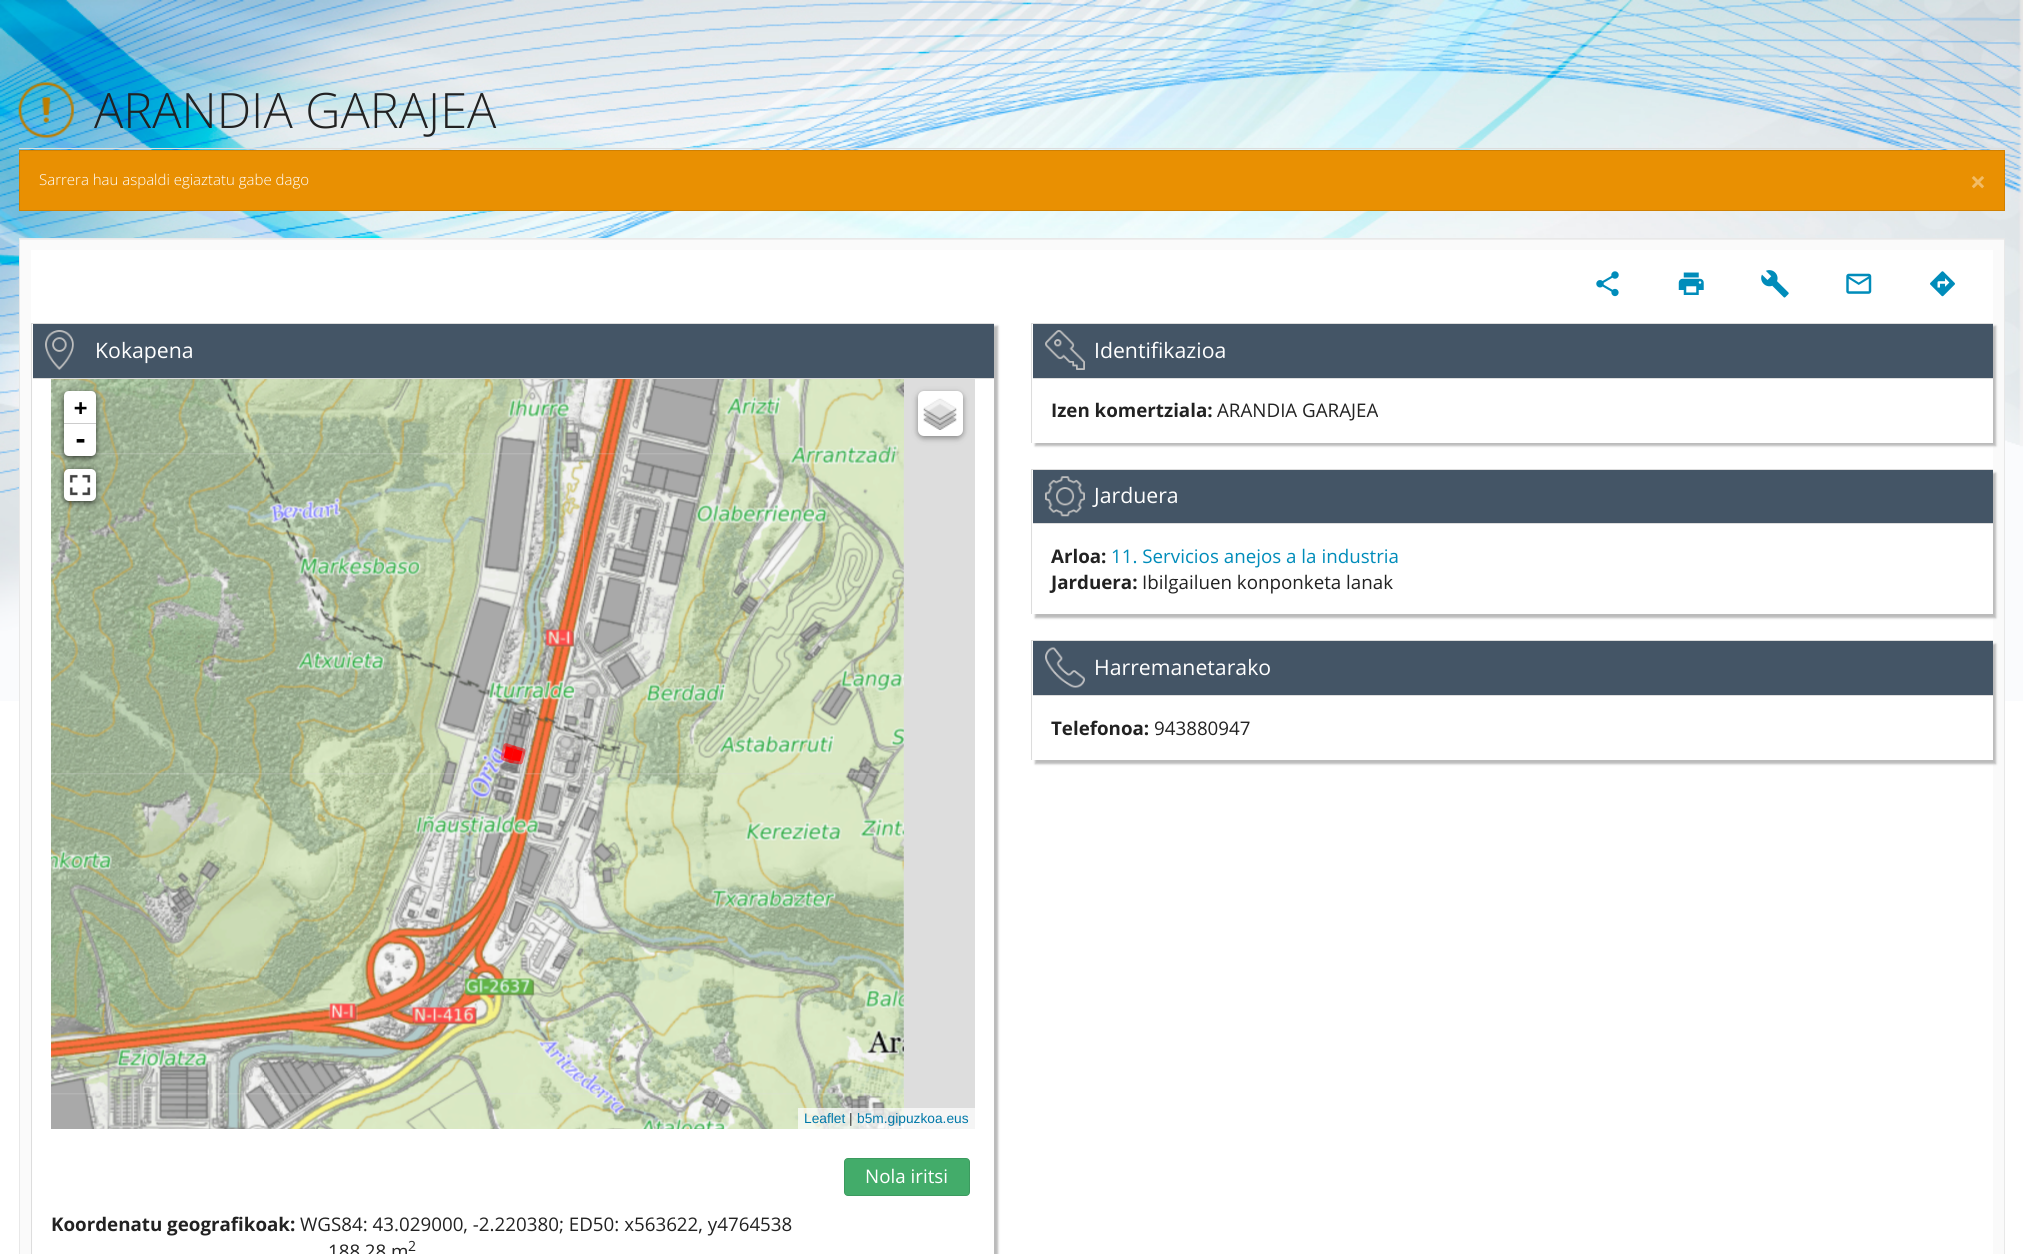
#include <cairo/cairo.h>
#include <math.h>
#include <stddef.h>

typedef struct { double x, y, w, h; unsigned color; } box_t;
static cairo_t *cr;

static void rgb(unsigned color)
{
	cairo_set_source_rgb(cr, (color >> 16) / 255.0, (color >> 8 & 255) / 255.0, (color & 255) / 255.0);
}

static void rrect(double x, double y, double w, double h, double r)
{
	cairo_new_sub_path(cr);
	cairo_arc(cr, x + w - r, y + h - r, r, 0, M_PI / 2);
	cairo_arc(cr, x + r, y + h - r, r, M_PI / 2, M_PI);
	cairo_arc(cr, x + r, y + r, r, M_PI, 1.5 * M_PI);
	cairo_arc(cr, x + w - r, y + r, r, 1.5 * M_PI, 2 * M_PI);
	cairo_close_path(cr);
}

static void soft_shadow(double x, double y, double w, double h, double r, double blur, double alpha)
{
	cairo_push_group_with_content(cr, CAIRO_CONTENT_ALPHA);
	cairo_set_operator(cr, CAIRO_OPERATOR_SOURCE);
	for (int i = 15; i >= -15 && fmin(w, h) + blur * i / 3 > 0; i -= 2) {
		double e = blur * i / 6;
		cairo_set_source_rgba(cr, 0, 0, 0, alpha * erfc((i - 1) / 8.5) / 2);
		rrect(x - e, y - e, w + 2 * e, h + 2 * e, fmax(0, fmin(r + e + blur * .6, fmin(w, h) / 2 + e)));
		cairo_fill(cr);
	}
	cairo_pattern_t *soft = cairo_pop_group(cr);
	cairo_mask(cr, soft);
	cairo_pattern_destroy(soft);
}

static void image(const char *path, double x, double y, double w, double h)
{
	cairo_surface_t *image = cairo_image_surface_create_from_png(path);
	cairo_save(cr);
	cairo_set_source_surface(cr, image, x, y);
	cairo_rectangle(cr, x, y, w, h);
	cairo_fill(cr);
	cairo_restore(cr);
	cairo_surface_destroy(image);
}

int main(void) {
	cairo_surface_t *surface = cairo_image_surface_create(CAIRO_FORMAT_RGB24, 2023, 1254);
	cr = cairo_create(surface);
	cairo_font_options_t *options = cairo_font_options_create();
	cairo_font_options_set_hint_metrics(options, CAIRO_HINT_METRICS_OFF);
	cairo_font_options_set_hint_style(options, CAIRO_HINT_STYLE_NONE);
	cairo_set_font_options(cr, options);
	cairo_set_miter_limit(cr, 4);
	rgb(0xffffff);
	cairo_paint(cr);
	image("img/1.png", 0, 0, 2023, 701);
	image("img/2.png", 18, 82, 56, 56);
	rgb(0xdddddd);
	cairo_rectangle(cr, 19, 148, 1986, 1);
	cairo_fill(cr);
	rgb(0xe99002);
	cairo_rectangle(cr, 19.5, 150.5, 1985, 60);
	cairo_fill_preserve(cr);
	rgb(0xd08002);
	cairo_set_line_width(cr, 1);
	cairo_stroke(cr);
	rgb(0xfafafa);
	cairo_rectangle(cr, 20, 240, 1984, 1014);
	cairo_fill(cr);
	rgb(0xeeeeee);
	cairo_rectangle(cr, 20, 239, 1984, 1);
	cairo_fill(cr);
	cairo_rectangle(cr, 19.5, 238.5, 1985, 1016);
	rgb(0xe8e8e8);
	cairo_stroke(cr);
	rgb(0xffffff);
	cairo_rectangle(cr, 31, 250, 1962, 1004);
	cairo_fill(cr);
	image("img/3.png", 1596, 271, 23, 26);
	image("img/4.png", 1678, 272, 26, 23);
	image("img/5.png", 1761, 270, 28, 28);
	image("img/6.png", 1846, 273, 26, 21);
	image("img/7.png", 1930, 271, 25, 26);
	rgb(0xbbbbbb);
	soft_shadow(35, 326, 963, 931, 0, 1, 1);
	{
		static const box_t items[] = {
			{33, 379, 961, 875, 0xffffff},
			{31, 323, 963, 1, 0xdddddd},
			{31, 323, 1, 931, 0xdddddd},
			{33, 324, 961, 54, 0x445566},
		};
		for (size_t i = 0; i < sizeof items / sizeof *items; i++) {
			rgb(items[i].color);
			cairo_rectangle(cr, items[i].x, items[i].y, items[i].w, items[i].h);
			cairo_fill(cr);
		}
	}
	image("img/8.png", 45, 330, 29, 40);
	rgb(0xdddddd);
	cairo_rectangle(cr, 33, 378, 961, 1);
	cairo_fill(cr);
	cairo_rectangle(cr, 51, 379, 924, 750);
	cairo_fill(cr);
	image("img/13.png", 263, 453, 321, 322);
	image("img/14.png", 583, 453, 321, 322);
	image("img/16.png", 263, 773, 321, 322);
	image("img/12.png", 51, 453, 213, 322);
	image("img/9.png", 51, 379, 213, 76);
	image("img/10.png", 264, 379, 320, 76);
	image("img/11.png", 584, 379, 320, 76);
	image("img/15.png", 51, 773, 213, 322);
	image("img/17.png", 583, 773, 321, 322);
	image("img/18.png", 51, 1093, 213, 36);
	image("img/19.png", 264, 1093, 320, 36);
	image("img/20.png", 584, 1093, 320, 36);
	image("img/21.png", 500, 743, 26, 22);
	rgb(0x000000);
	soft_shadow(64, 393, 32, 65, 5, 3, 0.65);
	rgb(0xffffff);
	cairo_new_path(cr);
	cairo_move_to(cr, 69, 391);
	cairo_line_to(cr, 91, 391);
	cairo_curve_to(cr, 94, 391, 96, 393, 96, 396);
	cairo_line_to(cr, 96, 424);
	cairo_line_to(cr, 64, 424);
	cairo_line_to(cr, 64, 396);
	cairo_curve_to(cr, 64, 393, 66, 391, 69, 391);
	cairo_close_path(cr);
	cairo_fill(cr);
	rgb(0xcccccc);
	cairo_rectangle(cr, 64, 423, 32, 1);
	cairo_fill(cr);
	rgb(0xffffff);
	cairo_new_path(cr);
	cairo_move_to(cr, 64, 424);
	cairo_line_to(cr, 96, 424);
	cairo_line_to(cr, 96, 451);
	cairo_curve_to(cr, 96, 454, 94, 456, 91, 456);
	cairo_line_to(cr, 69, 456);
	cairo_curve_to(cr, 66, 456, 64, 454, 64, 451);
	cairo_close_path(cr);
	cairo_fill(cr);
	rgb(0x000000);
	soft_shadow(64, 470, 32, 33, 5, 3, 0.65);
	rgb(0xffffff);
	rrect(64, 469, 32, 32, 5);
	cairo_fill(cr);
	image("img/22.png", 69, 474, 22, 22);
	rgb(0x000000);
	soft_shadow(918, 393, 45, 45, 6, 3, 0.4);
	rgb(0xffffff);
	rrect(918, 391, 45, 45, 6);
	cairo_fill(cr);
	image("img/23.png", 923, 398, 34, 32);
	cairo_set_source_rgba(cr, 1, 1, 1, 0.7);
	cairo_rectangle(cr, 798, 1108, 177, 21);
	cairo_fill(cr);
	rgb(0x43ac6a);
	rrect(844.5, 1158.5, 125, 37, 3.5);
	cairo_fill_preserve(cr);
	rgb(0x3c9a5f);
	cairo_stroke(cr);
	rgb(0xbbbbbb);
	soft_shadow(1035, 326, 961, 120, 0, 1, 1);
	{
		static const box_t items[] = {
			{1033, 379, 960, 64, 0xffffff},
			{1031, 323, 962, 1, 0xdddddd},
			{1031, 323, 1, 120, 0xdddddd},
			{1033, 324, 960, 54, 0x445566},
		};
		for (size_t i = 0; i < sizeof items / sizeof *items; i++) {
			rgb(items[i].color);
			cairo_rectangle(cr, items[i].x, items[i].y, items[i].w, items[i].h);
			cairo_fill(cr);
		}
	}
	image("img/24.png", 1045, 330, 40, 40);
	rgb(0xdddddd);
	cairo_rectangle(cr, 1033, 378, 960, 1);
	cairo_fill(cr);
	rgb(0xbbbbbb);
	soft_shadow(1035, 473, 961, 145, 0, 1, 1);
	{
		static const box_t items[] = {
			{1033, 524, 960, 90, 0xffffff},
			{1031, 469, 962, 1, 0xdddddd},
			{1031, 469, 1, 145, 0xdddddd},
			{1033, 470, 960, 53, 0x445566},
		};
		for (size_t i = 0; i < sizeof items / sizeof *items; i++) {
			rgb(items[i].color);
			cairo_rectangle(cr, items[i].x, items[i].y, items[i].w, items[i].h);
			cairo_fill(cr);
		}
	}
	image("img/25.png", 1045, 476, 40, 41);
	rgb(0xdddddd);
	cairo_rectangle(cr, 1033, 523, 960, 1);
	cairo_fill(cr);
	rgb(0xbbbbbb);
	soft_shadow(1035, 644, 961, 120, 0, 1, 1);
	{
		static const box_t items[] = {
			{1033, 696, 960, 64, 0xffffff},
			{1031, 640, 962, 1, 0xdddddd},
			{1031, 640, 1, 120, 0xdddddd},
			{1033, 641, 960, 54, 0x445566},
		};
		for (size_t i = 0; i < sizeof items / sizeof *items; i++) {
			rgb(items[i].color);
			cairo_rectangle(cr, items[i].x, items[i].y, items[i].w, items[i].h);
			cairo_fill(cr);
		}
	}
	image("img/26.png", 1045, 647, 40, 41);
	rgb(0xdddddd);
	cairo_rectangle(cr, 1033, 695, 960, 1);
	cairo_fill(cr);
	cairo_select_font_face(cr, "Open Sans Light", CAIRO_FONT_SLANT_NORMAL, CAIRO_FONT_WEIGHT_NORMAL);
	cairo_set_font_size(cr, 48.75);
	rgb(0x222222);
	cairo_move_to(cr, 94, 128);
	cairo_show_text(cr, "ARANDIA GARAJEA");
	cairo_set_font_size(cr, 15);
	rgb(0xffffff);
	cairo_move_to(cr, 39, 185);
	cairo_show_text(cr, "Sarrera hau aspaldi egiaztatu gabe dago");
	cairo_select_font_face(cr, "Open Sans", CAIRO_FONT_SLANT_NORMAL, CAIRO_FONT_WEIGHT_BOLD);
	cairo_set_font_size(cr, 28);
	rgb(0xf2bc67);
	cairo_move_to(cr, 1970, 192);
	cairo_show_text(cr, "×");
	cairo_select_font_face(cr, "Open Sans", CAIRO_FONT_SLANT_NORMAL, CAIRO_FONT_WEIGHT_NORMAL);
	cairo_set_font_size(cr, 21.25);
	rgb(0xffffff);
	cairo_move_to(cr, 95, 358);
	cairo_show_text(cr, "Kokapena");
	cairo_select_font_face(cr, "DejaVu Sans Mono", CAIRO_FONT_SLANT_NORMAL, CAIRO_FONT_WEIGHT_BOLD);
	cairo_set_font_size(cr, 22);
	rgb(0x000000);
	cairo_move_to(cr, 74, 415);
	cairo_show_text(cr, "+");
	cairo_set_font_size(cr, 25);
	cairo_move_to(cr, 73, 448);
	cairo_show_text(cr, "-");
	cairo_select_font_face(cr, "Liberation Sans", CAIRO_FONT_SLANT_NORMAL, CAIRO_FONT_WEIGHT_NORMAL);
	cairo_set_font_size(cr, 13.75);
	rgb(0x0078a8);
	cairo_move_to(cr, 804, 1123);
	cairo_show_text(cr, "Leaflet");
	rgb(0x333333);
	cairo_move_to(cr, 849, 1123);
	cairo_show_text(cr, "|");
	rgb(0x0078a8);
	cairo_move_to(cr, 857, 1123);
	cairo_show_text(cr, "b5m.gipuzkoa.eus");
	cairo_select_font_face(cr, "Open Sans", CAIRO_FONT_SLANT_NORMAL, CAIRO_FONT_WEIGHT_NORMAL);
	cairo_set_font_size(cr, 18.75);
	rgb(0xffffff);
	cairo_move_to(cr, 865, 1183);
	cairo_show_text(cr, "Nola iritsi");
	cairo_select_font_face(cr, "Open Sans", CAIRO_FONT_SLANT_NORMAL, CAIRO_FONT_WEIGHT_BOLD);
	rgb(0x222222);
	cairo_move_to(cr, 51, 1231);
	cairo_show_text(cr, "Koordenatu geografikoak:");
	cairo_select_font_face(cr, "Open Sans", CAIRO_FONT_SLANT_NORMAL, CAIRO_FONT_WEIGHT_NORMAL);
	cairo_move_to(cr, 300, 1231);
	cairo_show_text(cr, "WGS84: 43.029000, -2.220380; ED50: x563622, y4764538");
	cairo_move_to(cr, 328, 1258);
	cairo_show_text(cr, "188,28 m");
	cairo_set_font_size(cr, 14);
	cairo_move_to(cr, 408, 1251);
	cairo_show_text(cr, "2");
	cairo_set_font_size(cr, 21.25);
	rgb(0xffffff);
	cairo_move_to(cr, 1094, 358);
	cairo_show_text(cr, "Identifikazioa");
	cairo_select_font_face(cr, "Open Sans", CAIRO_FONT_SLANT_NORMAL, CAIRO_FONT_WEIGHT_BOLD);
	cairo_set_font_size(cr, 18.75);
	rgb(0x222222);
	cairo_move_to(cr, 1051, 417);
	cairo_show_text(cr, "Izen komertziala:");
	cairo_select_font_face(cr, "Open Sans", CAIRO_FONT_SLANT_NORMAL, CAIRO_FONT_WEIGHT_NORMAL);
	cairo_move_to(cr, 1217, 417);
	cairo_show_text(cr, "ARANDIA GARAJEA");
	cairo_set_font_size(cr, 21.25);
	rgb(0xffffff);
	cairo_move_to(cr, 1094, 503);
	cairo_show_text(cr, "Jarduera");
	cairo_select_font_face(cr, "Open Sans", CAIRO_FONT_SLANT_NORMAL, CAIRO_FONT_WEIGHT_BOLD);
	cairo_set_font_size(cr, 18.75);
	rgb(0x222222);
	cairo_move_to(cr, 1051, 563);
	cairo_show_text(cr, "Arloa:");
	cairo_select_font_face(cr, "Open Sans", CAIRO_FONT_SLANT_NORMAL, CAIRO_FONT_WEIGHT_NORMAL);
	rgb(0x008cba);
	cairo_move_to(cr, 1111, 563);
	cairo_show_text(cr, "11. Servicios anejos a la industria");
	cairo_select_font_face(cr, "Open Sans", CAIRO_FONT_SLANT_NORMAL, CAIRO_FONT_WEIGHT_BOLD);
	rgb(0x222222);
	cairo_move_to(cr, 1051, 589);
	cairo_show_text(cr, "Jarduera:");
	cairo_select_font_face(cr, "Open Sans", CAIRO_FONT_SLANT_NORMAL, CAIRO_FONT_WEIGHT_NORMAL);
	cairo_move_to(cr, 1142, 589);
	cairo_show_text(cr, "Ibilgailuen konponketa lanak");
	cairo_set_font_size(cr, 21.25);
	rgb(0xffffff);
	cairo_move_to(cr, 1094, 675);
	cairo_show_text(cr, "Harremanetarako");
	cairo_select_font_face(cr, "Open Sans", CAIRO_FONT_SLANT_NORMAL, CAIRO_FONT_WEIGHT_BOLD);
	cairo_set_font_size(cr, 18.75);
	rgb(0x222222);
	cairo_move_to(cr, 1051, 735);
	cairo_show_text(cr, "Telefonoa:");
	cairo_select_font_face(cr, "Open Sans", CAIRO_FONT_SLANT_NORMAL, CAIRO_FONT_WEIGHT_NORMAL);
	cairo_move_to(cr, 1154, 735);
	cairo_show_text(cr, "943880947");
	cairo_surface_write_to_png(surface, "page.png");
	cairo_font_options_destroy(options);
	cairo_destroy(cr);
	cairo_surface_destroy(surface);
	return 0;
}
